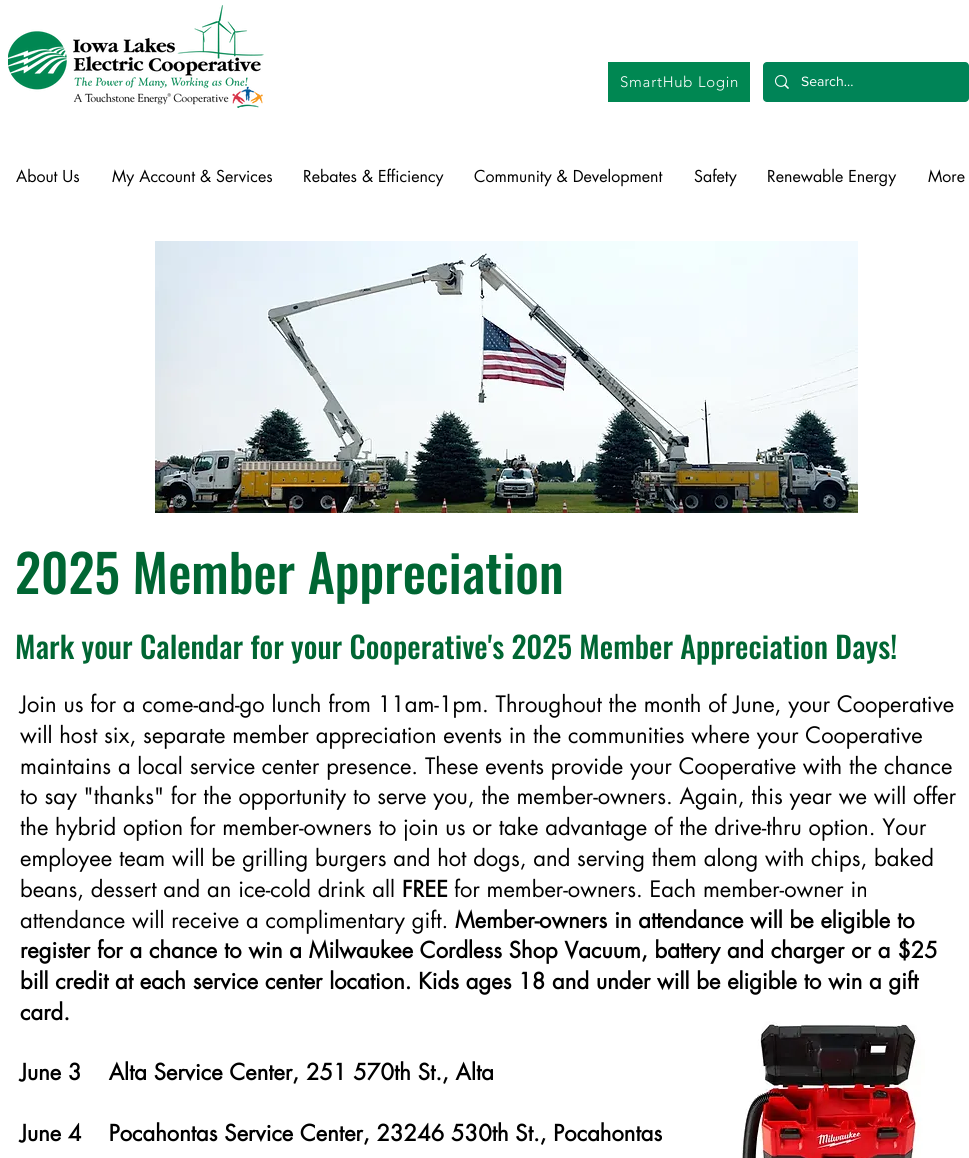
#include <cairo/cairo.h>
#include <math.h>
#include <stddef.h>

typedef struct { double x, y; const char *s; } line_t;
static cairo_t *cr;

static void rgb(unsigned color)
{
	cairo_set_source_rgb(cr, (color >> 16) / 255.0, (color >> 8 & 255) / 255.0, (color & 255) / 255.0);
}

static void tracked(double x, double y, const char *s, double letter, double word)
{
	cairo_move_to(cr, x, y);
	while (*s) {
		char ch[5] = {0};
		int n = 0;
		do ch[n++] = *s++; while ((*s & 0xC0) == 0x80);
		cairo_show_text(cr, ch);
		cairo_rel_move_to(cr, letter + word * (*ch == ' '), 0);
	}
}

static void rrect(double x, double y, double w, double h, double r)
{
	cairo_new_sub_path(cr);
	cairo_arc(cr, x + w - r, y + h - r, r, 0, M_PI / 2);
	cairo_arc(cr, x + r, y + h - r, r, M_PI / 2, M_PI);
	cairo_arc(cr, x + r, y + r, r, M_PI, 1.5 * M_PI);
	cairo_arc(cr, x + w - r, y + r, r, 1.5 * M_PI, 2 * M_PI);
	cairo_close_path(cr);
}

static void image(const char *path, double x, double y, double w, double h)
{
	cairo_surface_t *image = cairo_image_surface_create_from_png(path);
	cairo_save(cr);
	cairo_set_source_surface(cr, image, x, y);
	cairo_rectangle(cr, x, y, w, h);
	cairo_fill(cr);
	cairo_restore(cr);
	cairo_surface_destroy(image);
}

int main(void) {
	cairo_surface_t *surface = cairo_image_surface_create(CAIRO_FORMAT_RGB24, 969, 1158);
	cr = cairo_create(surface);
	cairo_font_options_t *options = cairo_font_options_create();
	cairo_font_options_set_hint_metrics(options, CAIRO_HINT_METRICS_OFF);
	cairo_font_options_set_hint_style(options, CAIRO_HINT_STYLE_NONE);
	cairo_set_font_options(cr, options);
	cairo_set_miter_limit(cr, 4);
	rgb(0xffffff);
	cairo_paint(cr);
	image("img/1.png", 8, 5, 256, 103);
	rgb(0x008752);
	cairo_rectangle(cr, 608, 62, 142, 40);
	cairo_fill(cr);
	rgb(0x008457);
	rrect(763, 62, 206, 40, 4);
	cairo_fill(cr);
	image("img/2.png", 775, 75, 14, 14);
	image("img/3.png", 155, 241, 703, 272);
	image("img/4.png", 741, 1021, 184, 137);
	cairo_select_font_face(cr, "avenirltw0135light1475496 Light", CAIRO_FONT_SLANT_NORMAL, CAIRO_FONT_WEIGHT_NORMAL);
	cairo_set_font_size(cr, 15);
	rgb(0xffffff);
	tracked(620, 87, "SmartHub Login", 0.75, 0);
	cairo_select_font_face(cr, "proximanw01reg", CAIRO_FONT_SLANT_NORMAL, CAIRO_FONT_WEIGHT_NORMAL);
	cairo_set_font_size(cr, 14);
	cairo_move_to(cr, 801, 86);
	cairo_show_text(cr, "Search...");
	cairo_select_font_face(cr, "futura", CAIRO_FONT_SLANT_NORMAL, CAIRO_FONT_WEIGHT_NORMAL);
	cairo_set_font_size(cr, 16);
	rgb(0x000000);
	{
		static const line_t items[] = {
			{16, 182, "About Us"},
			{112, 182, "My Account & Services"},
			{303, 182, "Rebates & Efficiency"},
			{474, 182, "Community & Development"},
			{694, 182, "Safety"},
			{767, 182, "Renewable Energy"},
			{928, 182, "More"},
		};
		for (size_t i = 0; i < sizeof items / sizeof *items; i++) {
			cairo_move_to(cr, items[i].x, items[i].y);
			cairo_show_text(cr, items[i].s);
		}
	}
	cairo_select_font_face(cr, "Oswald Medium", CAIRO_FONT_SLANT_NORMAL, CAIRO_FONT_WEIGHT_NORMAL);
	cairo_set_font_size(cr, 52);
	rgb(0x006633);
	cairo_move_to(cr, 15, 594);
	cairo_show_text(cr, "2025 Member Appreciation");
	cairo_set_font_size(cr, 30);
	cairo_move_to(cr, 15, 659);
	cairo_show_text(cr, "Mark your Calendar for your Cooperative's 2025 Member Appreciation Days!");
	cairo_select_font_face(cr, "futura", CAIRO_FONT_SLANT_NORMAL, CAIRO_FONT_WEIGHT_NORMAL);
	cairo_set_font_size(cr, 22);
	rgb(0x000000);
	{
		static const line_t items[] = {
			{20, 712, "Join us for a come-and-go lunch from 11am-1pm. Throughout the month of June, your Cooperative"},
			{20, 743, "will host six, separate member appreciation events in the communities where your Cooperative"},
			{20, 774, "maintains a local service center presence. These events provide your Cooperative with the chance"},
			{20, 804, "to say \"thanks\" for the opportunity to serve you, the member-owners. Again, this year we will offer"},
			{20, 835, "the hybrid option for member-owners to join us or take advantage of the drive-thru option. Your"},
			{20, 866, "employee team will be grilling burgers and hot dogs, and serving them along with chips, baked"},
			{20, 897, "beans, dessert and an ice-cold drink all"},
		};
		for (size_t i = 0; i < sizeof items / sizeof *items; i++) {
			cairo_move_to(cr, items[i].x, items[i].y);
			cairo_show_text(cr, items[i].s);
		}
	}
	cairo_select_font_face(cr, "futura", CAIRO_FONT_SLANT_NORMAL, CAIRO_FONT_WEIGHT_BOLD);
	cairo_move_to(cr, 402, 897);
	cairo_show_text(cr, "FREE");
	cairo_select_font_face(cr, "futura", CAIRO_FONT_SLANT_NORMAL, CAIRO_FONT_WEIGHT_NORMAL);
	cairo_move_to(cr, 454, 897);
	cairo_show_text(cr, "for member-owners. Each member-owner in");
	cairo_move_to(cr, 20, 928);
	cairo_show_text(cr, "attendance will receive a complimentary gift.");
	cairo_select_font_face(cr, "futura", CAIRO_FONT_SLANT_NORMAL, CAIRO_FONT_WEIGHT_BOLD);
	{
		static const line_t items[] = {
			{455, 928, "Member-owners in attendance will be eligible to"},
			{20, 958, "register for a chance to win a Milwaukee Cordless Shop Vacuum, battery and charger or a $25"},
			{20, 989, "bill credit at each service center location. Kids ages 18 and under will be eligible to win a gift"},
			{20, 1020, "card."},
			{20, 1080, "June 3    Alta Service Center, 251 570th St., Alta"},
			{20, 1141, "June 4    Pocahontas Service Center, 23246 530th St., Pocahontas"},
		};
		for (size_t i = 0; i < sizeof items / sizeof *items; i++) {
			cairo_move_to(cr, items[i].x, items[i].y);
			cairo_show_text(cr, items[i].s);
		}
	}
	cairo_surface_write_to_png(surface, "page.png");
	cairo_font_options_destroy(options);
	cairo_destroy(cr);
	cairo_surface_destroy(surface);
	return 0;
}
